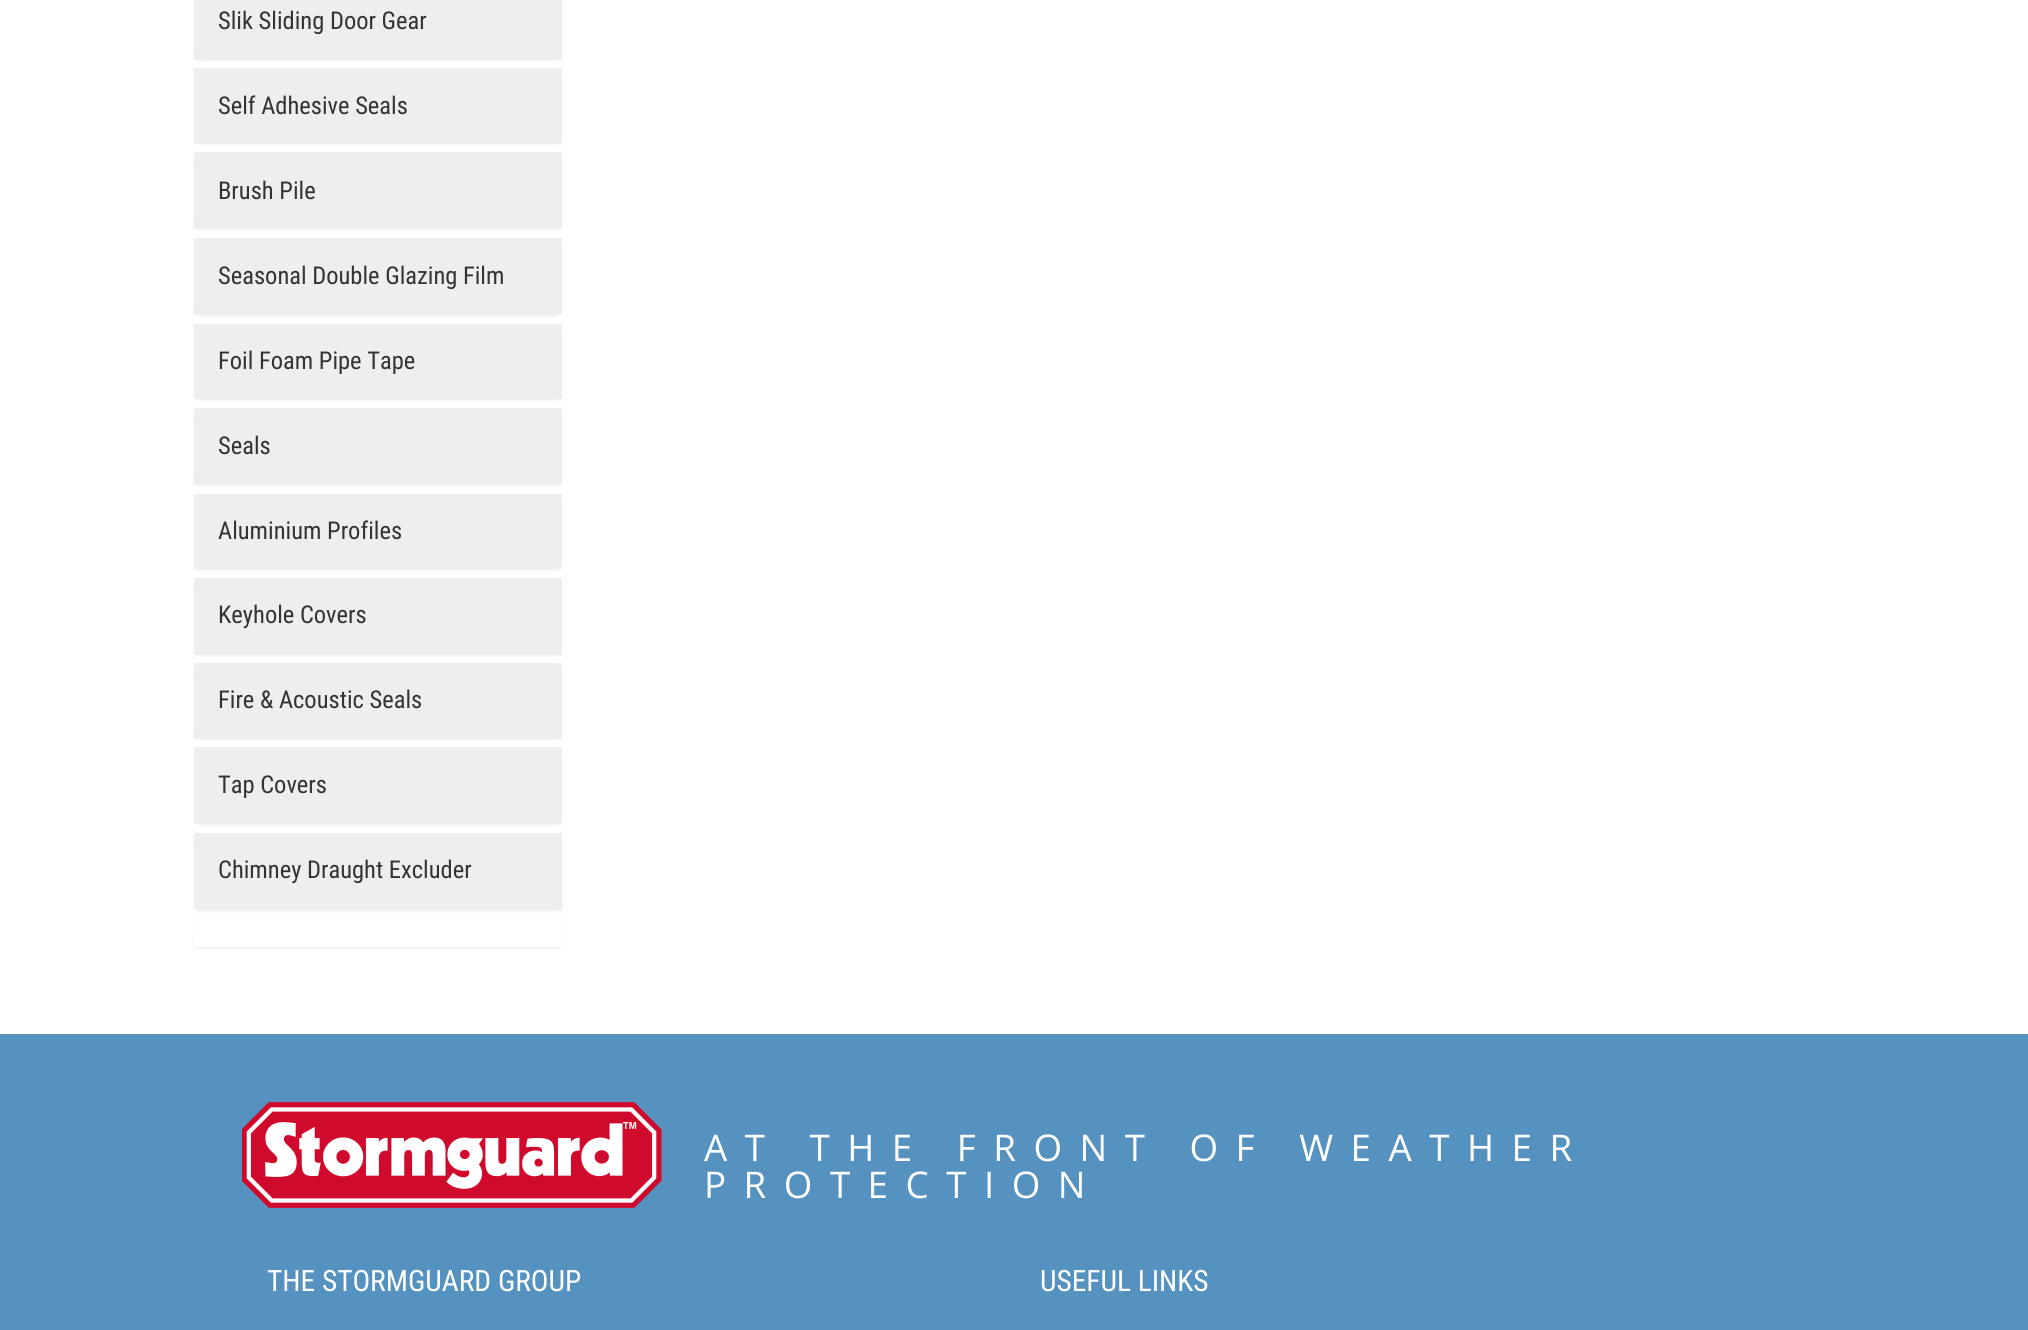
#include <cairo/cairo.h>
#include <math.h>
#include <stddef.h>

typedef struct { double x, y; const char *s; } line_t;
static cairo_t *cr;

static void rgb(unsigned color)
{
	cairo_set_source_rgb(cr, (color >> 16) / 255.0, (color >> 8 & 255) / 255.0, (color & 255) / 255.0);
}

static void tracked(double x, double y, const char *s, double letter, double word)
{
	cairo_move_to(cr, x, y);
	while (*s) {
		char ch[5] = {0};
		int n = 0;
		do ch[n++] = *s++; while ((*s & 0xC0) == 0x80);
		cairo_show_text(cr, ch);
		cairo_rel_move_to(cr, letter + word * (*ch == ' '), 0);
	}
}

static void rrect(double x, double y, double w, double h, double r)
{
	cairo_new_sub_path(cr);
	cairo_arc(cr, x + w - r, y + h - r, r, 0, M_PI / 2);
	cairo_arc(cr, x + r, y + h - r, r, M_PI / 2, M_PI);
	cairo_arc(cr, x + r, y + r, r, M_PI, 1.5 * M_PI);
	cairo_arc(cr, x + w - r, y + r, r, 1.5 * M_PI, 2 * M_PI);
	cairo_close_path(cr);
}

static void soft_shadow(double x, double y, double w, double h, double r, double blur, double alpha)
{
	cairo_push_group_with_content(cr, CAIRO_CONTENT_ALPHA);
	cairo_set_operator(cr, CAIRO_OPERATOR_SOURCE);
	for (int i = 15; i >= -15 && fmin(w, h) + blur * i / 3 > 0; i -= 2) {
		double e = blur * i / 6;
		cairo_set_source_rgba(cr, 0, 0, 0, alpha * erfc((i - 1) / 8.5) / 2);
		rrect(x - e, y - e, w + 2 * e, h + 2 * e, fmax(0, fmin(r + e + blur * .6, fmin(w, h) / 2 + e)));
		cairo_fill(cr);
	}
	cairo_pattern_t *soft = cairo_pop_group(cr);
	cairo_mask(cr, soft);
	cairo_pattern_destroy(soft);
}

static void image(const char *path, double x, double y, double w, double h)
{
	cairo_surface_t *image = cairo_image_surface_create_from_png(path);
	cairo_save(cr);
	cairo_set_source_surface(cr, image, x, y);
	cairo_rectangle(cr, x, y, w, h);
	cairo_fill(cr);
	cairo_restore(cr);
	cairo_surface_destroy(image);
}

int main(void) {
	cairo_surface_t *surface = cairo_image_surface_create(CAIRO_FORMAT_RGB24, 2028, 1330);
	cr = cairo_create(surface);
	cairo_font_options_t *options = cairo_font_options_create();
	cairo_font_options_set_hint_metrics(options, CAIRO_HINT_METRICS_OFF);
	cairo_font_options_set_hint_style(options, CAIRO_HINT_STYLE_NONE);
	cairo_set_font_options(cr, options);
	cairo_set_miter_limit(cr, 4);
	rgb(0xffffff);
	cairo_paint(cr);
	rgb(0x000000);
	soft_shadow(193, -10, 371, 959, 7, 1, 0.05);
	rgb(0xffffff);
	rrect(193, -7, 371, 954, 7);
	cairo_fill(cr);
	rgb(0x000000);
	soft_shadow(194, -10, 368, 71, 7, 1, 0.05);
	rgb(0xeeeeee);
	cairo_rectangle(cr, 194, 0, 368, 60);
	cairo_fill(cr);
	rgb(0x000000);
	soft_shadow(194, 70, 368, 75, 7, 1, 0.05);
	rgb(0xeeeeee);
	cairo_rectangle(cr, 194, 68, 368, 76);
	cairo_fill(cr);
	rgb(0x000000);
	soft_shadow(194, 154, 368, 77, 7, 1, 0.05);
	rgb(0xeeeeee);
	cairo_rectangle(cr, 194, 152, 368, 77);
	cairo_fill(cr);
	rgb(0x000000);
	soft_shadow(194, 240, 368, 77, 7, 1, 0.05);
	rgb(0xeeeeee);
	cairo_rectangle(cr, 194, 238, 368, 77);
	cairo_fill(cr);
	rgb(0x000000);
	soft_shadow(194, 326, 368, 75, 7, 1, 0.05);
	rgb(0xeeeeee);
	cairo_rectangle(cr, 194, 324, 368, 75);
	cairo_fill(cr);
	rgb(0x000000);
	soft_shadow(194, 410, 368, 77, 7, 1, 0.05);
	rgb(0xeeeeee);
	cairo_rectangle(cr, 194, 408, 368, 77);
	cairo_fill(cr);
	rgb(0x000000);
	soft_shadow(194, 495, 368, 76, 7, 1, 0.05);
	rgb(0xeeeeee);
	cairo_rectangle(cr, 194, 494, 368, 75);
	cairo_fill(cr);
	rgb(0x000000);
	soft_shadow(194, 579, 368, 77, 7, 1, 0.05);
	rgb(0xeeeeee);
	cairo_rectangle(cr, 194, 578, 368, 77);
	cairo_fill(cr);
	rgb(0x000000);
	soft_shadow(194, 665, 368, 75, 7, 1, 0.05);
	rgb(0xeeeeee);
	cairo_rectangle(cr, 194, 663, 368, 76);
	cairo_fill(cr);
	rgb(0x000000);
	soft_shadow(194, 749, 368, 77, 7, 1, 0.05);
	rgb(0xeeeeee);
	cairo_rectangle(cr, 194, 747, 368, 77);
	cairo_fill(cr);
	rgb(0x000000);
	soft_shadow(194, 835, 368, 77, 7, 1, 0.05);
	rgb(0xeeeeee);
	cairo_rectangle(cr, 194, 833, 368, 77);
	cairo_fill(cr);
	rgb(0x5592c0);
	cairo_rectangle(cr, 0, 1034, 2028, 296);
	cairo_fill(cr);
	image("img/1.png", 242, 1102, 420, 106);
	cairo_select_font_face(cr, "Roboto Condensed", CAIRO_FONT_SLANT_NORMAL, CAIRO_FONT_WEIGHT_NORMAL);
	cairo_set_font_size(cr, 24.5);
	rgb(0x333333);
	{
		static const line_t items[] = {
			{218, 29, "Slik Sliding Door Gear"},
			{218, 114, "Self Adhesive Seals"},
			{218, 199, "Brush Pile"},
			{218, 284, "Seasonal Double Glazing Film"},
			{218, 369, "Foil Foam Pipe Tape"},
			{218, 454, "Seals"},
			{218, 539, "Aluminium Profiles"},
			{218, 623, "Keyhole Covers"},
			{218, 708, "Fire & Acoustic Seals"},
			{218, 793, "Tap Covers"},
			{218, 878, "Chimney Draught Excluder"},
		};
		for (size_t i = 0; i < sizeof items / sizeof *items; i++) {
			cairo_move_to(cr, items[i].x, items[i].y);
			cairo_show_text(cr, items[i].s);
		}
	}
	cairo_select_font_face(cr, "Open Sans", CAIRO_FONT_SLANT_NORMAL, CAIRO_FONT_WEIGHT_NORMAL);
	cairo_set_font_size(cr, 36.75);
	rgb(0xffffff);
	tracked(704, 1161, "AT THE FRONT OF WEATHER", 17.5, 0);
	tracked(704, 1198, "PROTECTION", 17.5, 0);
	cairo_select_font_face(cr, "Roboto Condensed", CAIRO_FONT_SLANT_NORMAL, CAIRO_FONT_WEIGHT_NORMAL);
	cairo_set_font_size(cr, 29.4);
	cairo_move_to(cr, 267, 1291);
	cairo_show_text(cr, "THE STORMGUARD GROUP");
	cairo_move_to(cr, 1040, 1291);
	cairo_show_text(cr, "USEFUL LINKS");
	cairo_surface_write_to_png(surface, "page.png");
	cairo_font_options_destroy(options);
	cairo_destroy(cr);
	cairo_surface_destroy(surface);
	return 0;
}
